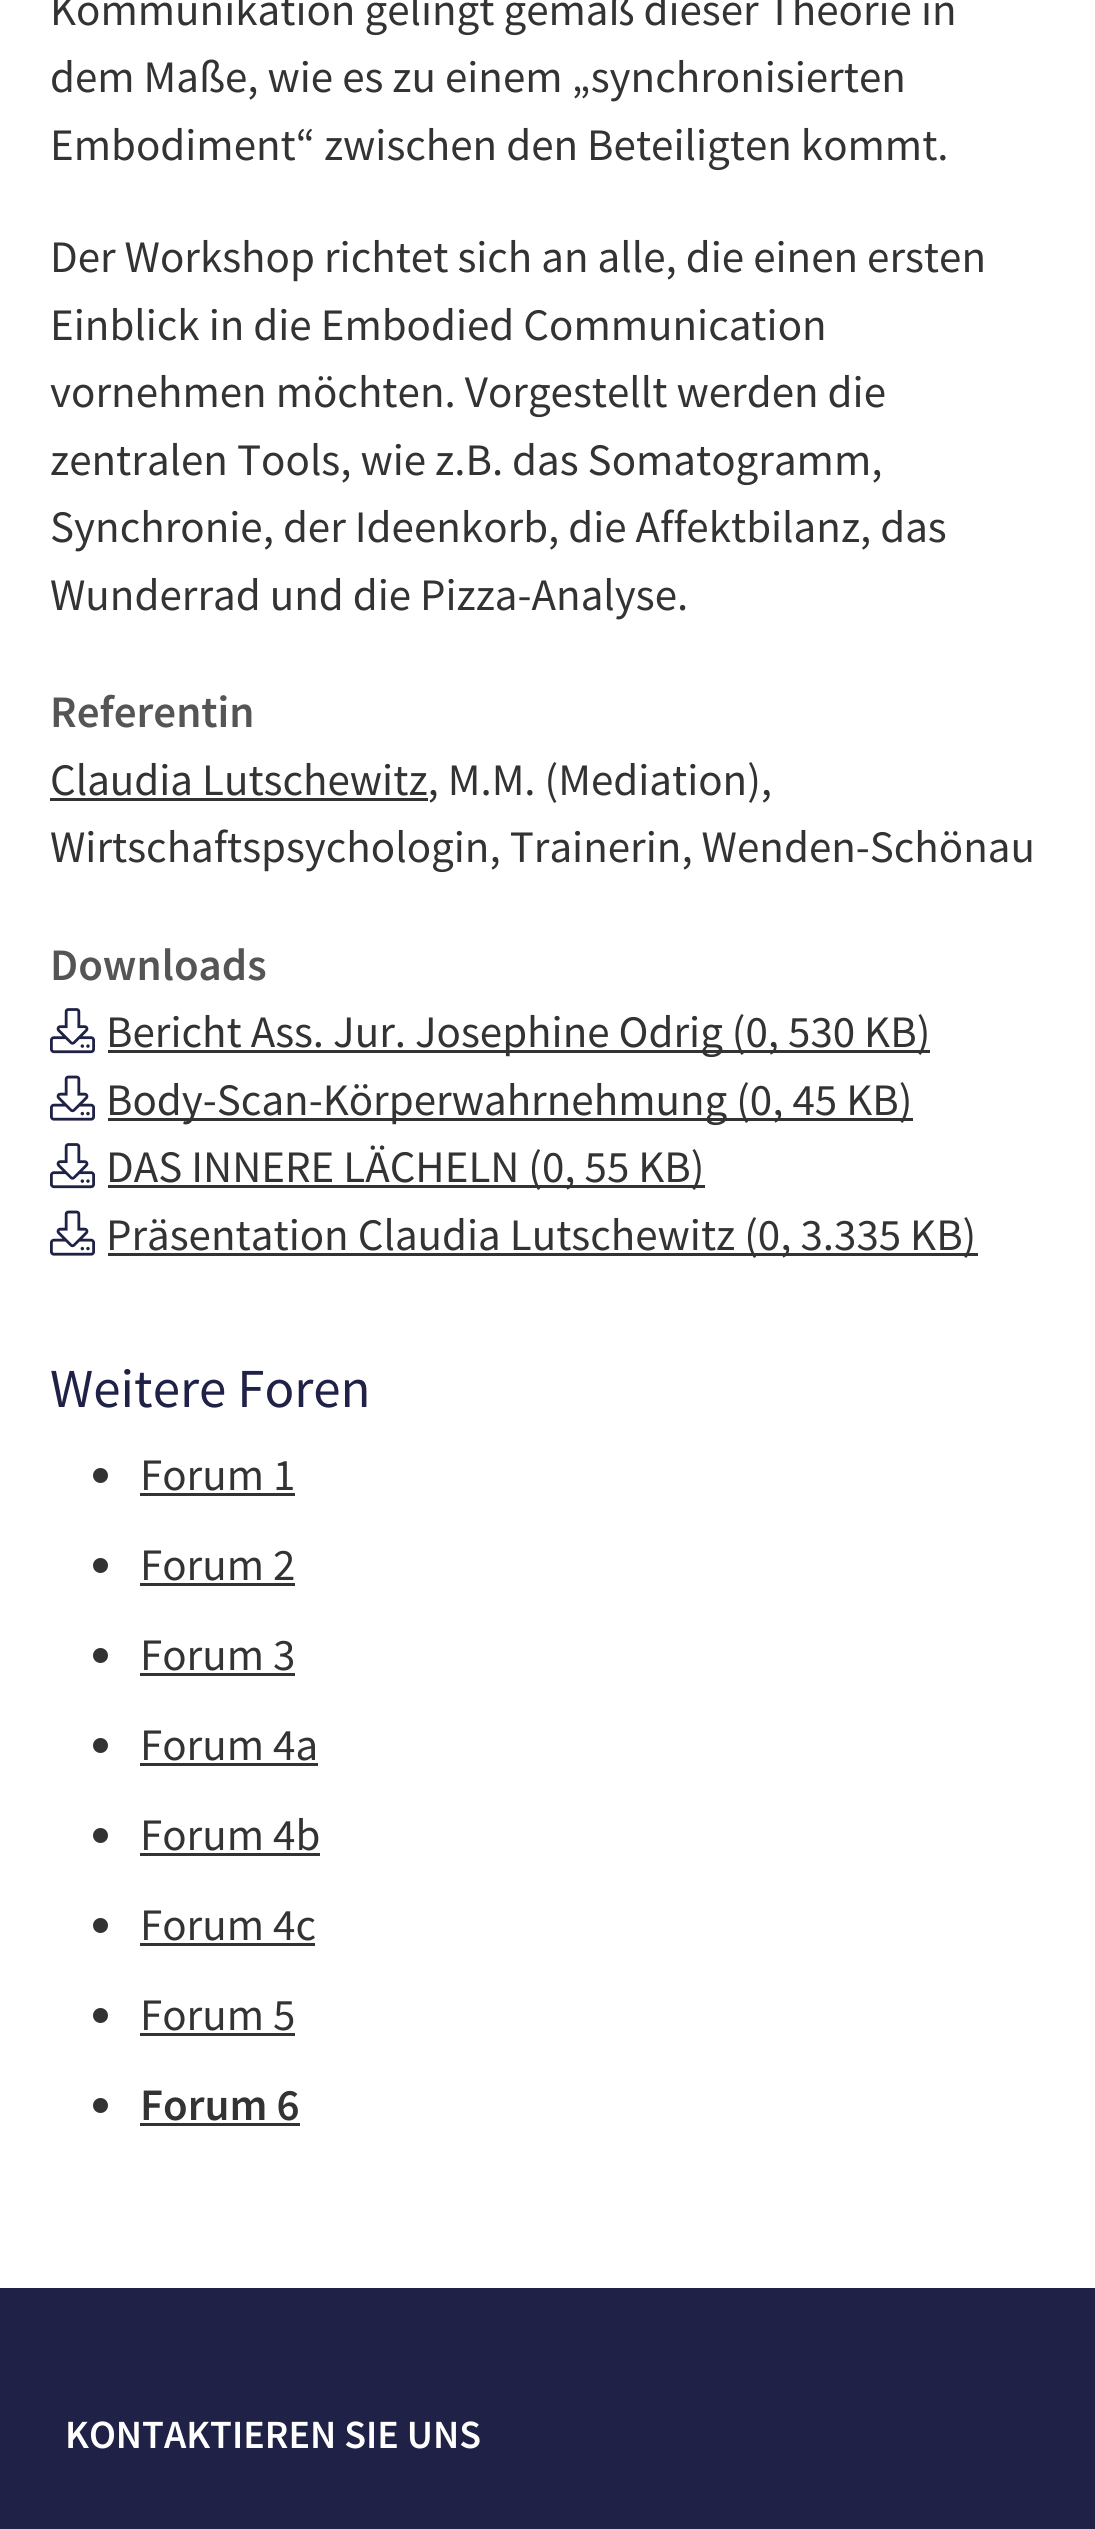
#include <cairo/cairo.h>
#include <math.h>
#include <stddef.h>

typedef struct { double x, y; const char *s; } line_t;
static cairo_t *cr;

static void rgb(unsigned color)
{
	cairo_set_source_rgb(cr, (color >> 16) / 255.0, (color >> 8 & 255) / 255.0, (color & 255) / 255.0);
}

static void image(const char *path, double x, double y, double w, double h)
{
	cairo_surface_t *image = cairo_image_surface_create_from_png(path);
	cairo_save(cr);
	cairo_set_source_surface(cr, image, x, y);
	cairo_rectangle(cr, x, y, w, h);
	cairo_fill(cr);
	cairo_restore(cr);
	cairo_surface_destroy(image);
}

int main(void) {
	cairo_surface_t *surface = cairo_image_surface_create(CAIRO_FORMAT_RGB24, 1095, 2529);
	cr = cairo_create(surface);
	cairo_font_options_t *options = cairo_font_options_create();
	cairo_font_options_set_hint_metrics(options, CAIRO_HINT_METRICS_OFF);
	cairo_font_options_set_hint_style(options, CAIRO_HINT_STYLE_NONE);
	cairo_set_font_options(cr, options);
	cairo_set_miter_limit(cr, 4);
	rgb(0xffffff);
	cairo_paint(cr);
	rgb(0x333333);
	cairo_rectangle(cr, 50, 798, 378, 3);
	cairo_fill(cr);
	image("img/1.png", 50, 1008, 45, 46);
	cairo_rectangle(cr, 108, 1050, 822, 3);
	cairo_fill(cr);
	image("img/2.png", 50, 1075, 45, 46);
	cairo_rectangle(cr, 108, 1118, 805, 3);
	cairo_fill(cr);
	image("img/1.png", 50, 1143, 45, 46);
	cairo_rectangle(cr, 108, 1185, 597, 3);
	cairo_fill(cr);
	image("img/2.png", 50, 1210, 45, 46);
	cairo_rectangle(cr, 108, 1253, 870, 3);
	cairo_fill(cr);
	cairo_arc(cr, 100.5, 1475.5, 7.5, 0, 2 * M_PI);
	cairo_fill(cr);
	cairo_rectangle(cr, 140, 1493, 155, 3);
	cairo_fill(cr);
	cairo_arc(cr, 100.5, 1565.5, 7.5, 0, 2 * M_PI);
	cairo_fill(cr);
	cairo_rectangle(cr, 140, 1583, 155, 3);
	cairo_fill(cr);
	cairo_arc(cr, 100.5, 1655.5, 7.5, 0, 2 * M_PI);
	cairo_fill(cr);
	cairo_rectangle(cr, 140, 1673, 155, 3);
	cairo_fill(cr);
	cairo_arc(cr, 100.5, 1745.5, 7.5, 0, 2 * M_PI);
	cairo_fill(cr);
	cairo_rectangle(cr, 140, 1763, 178, 3);
	cairo_fill(cr);
	cairo_arc(cr, 100.5, 1835.5, 7.5, 0, 2 * M_PI);
	cairo_fill(cr);
	cairo_rectangle(cr, 140, 1853, 180, 3);
	cairo_fill(cr);
	cairo_arc(cr, 100.5, 1925.5, 7.5, 0, 2 * M_PI);
	cairo_fill(cr);
	cairo_rectangle(cr, 140, 1943, 175, 3);
	cairo_fill(cr);
	cairo_arc(cr, 100.5, 2015.5, 7.5, 0, 2 * M_PI);
	cairo_fill(cr);
	cairo_rectangle(cr, 140, 2033, 155, 3);
	cairo_fill(cr);
	cairo_arc(cr, 100.5, 2105.5, 7.5, 0, 2 * M_PI);
	cairo_fill(cr);
	cairo_rectangle(cr, 140, 2123, 160, 3);
	cairo_fill(cr);
	rgb(0x1f2246);
	cairo_rectangle(cr, 0, 2288, 1095, 241);
	cairo_fill(cr);
	cairo_select_font_face(cr, "Source Sans Pro", CAIRO_FONT_SLANT_NORMAL, CAIRO_FONT_WEIGHT_NORMAL);
	cairo_set_font_size(cr, 45);
	rgb(0x333333);
	{
		static const line_t items[] = {
			{50, 25, "Kommunikation gelingt gemäß dieser Theorie in"},
			{50, 92, "dem Maße, wie es zu einem „synchronisierten"},
			{50, 160, "Embodiment“ zwischen den Beteiligten kommt."},
			{50, 272, "Der Workshop richtet sich an alle, die einen ersten"},
			{50, 340, "Einblick in die Embodied Communication"},
			{50, 407, "vornehmen möchten. Vorgestellt werden die"},
			{50, 475, "zentralen Tools, wie z.B. das Somatogramm,"},
			{50, 542, "Synchronie, der Ideenkorb, die Affektbilanz, das"},
			{50, 610, "Wunderrad und die Pizza-Analyse."},
		};
		for (size_t i = 0; i < sizeof items / sizeof *items; i++) {
			cairo_move_to(cr, items[i].x, items[i].y);
			cairo_show_text(cr, items[i].s);
		}
	}
	cairo_select_font_face(cr, "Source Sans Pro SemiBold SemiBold", CAIRO_FONT_SLANT_NORMAL, CAIRO_FONT_WEIGHT_NORMAL);
	rgb(0x555555);
	cairo_move_to(cr, 50, 727);
	cairo_show_text(cr, "Referentin");
	cairo_select_font_face(cr, "Source Sans Pro", CAIRO_FONT_SLANT_NORMAL, CAIRO_FONT_WEIGHT_NORMAL);
	rgb(0x333333);
	cairo_move_to(cr, 50, 795);
	cairo_show_text(cr, "Claudia Lutschewitz, M.M. (Mediation),");
	cairo_move_to(cr, 50, 862);
	cairo_show_text(cr, "Wirtschaftspsychologin, Trainerin, Wenden-Schönau");
	cairo_select_font_face(cr, "Source Sans Pro SemiBold SemiBold", CAIRO_FONT_SLANT_NORMAL, CAIRO_FONT_WEIGHT_NORMAL);
	rgb(0x555555);
	cairo_move_to(cr, 50, 980);
	cairo_show_text(cr, "Downloads");
	cairo_select_font_face(cr, "Source Sans Pro", CAIRO_FONT_SLANT_NORMAL, CAIRO_FONT_WEIGHT_NORMAL);
	rgb(0x333333);
	{
		static const line_t items[] = {
			{106, 1047, "Bericht Ass. Jur. Josephine Odrig (0, 530 KB)"},
			{106, 1115, "Body-Scan-Körperwahrnehmung (0, 45 KB)"},
			{106, 1182, "DAS INNERE LÄCHELN (0, 55 KB)"},
			{106, 1250, "Präsentation Claudia Lutschewitz (0, 3.335 KB)"},
		};
		for (size_t i = 0; i < sizeof items / sizeof *items; i++) {
			cairo_move_to(cr, items[i].x, items[i].y);
			cairo_show_text(cr, items[i].s);
		}
	}
	cairo_set_font_size(cr, 55);
	rgb(0x1f2246);
	cairo_move_to(cr, 50, 1407);
	cairo_show_text(cr, "Weitere Foren");
	cairo_set_font_size(cr, 45);
	rgb(0x333333);
	{
		static const line_t items[] = {
			{140, 1490, "Forum 1"},
			{140, 1580, "Forum 2"},
			{140, 1670, "Forum 3"},
			{140, 1760, "Forum 4a"},
			{140, 1850, "Forum 4b"},
			{140, 1940, "Forum 4c"},
			{140, 2030, "Forum 5"},
		};
		for (size_t i = 0; i < sizeof items / sizeof *items; i++) {
			cairo_move_to(cr, items[i].x, items[i].y);
			cairo_show_text(cr, items[i].s);
		}
	}
	cairo_select_font_face(cr, "Source Sans Pro SemiBold SemiBold", CAIRO_FONT_SLANT_NORMAL, CAIRO_FONT_WEIGHT_NORMAL);
	cairo_move_to(cr, 140, 2120);
	cairo_show_text(cr, "Forum 6");
	cairo_set_font_size(cr, 40);
	rgb(0xffffff);
	cairo_move_to(cr, 65, 2448);
	cairo_show_text(cr, "KONTAKTIEREN SIE UNS");
	cairo_surface_write_to_png(surface, "page.png");
	cairo_font_options_destroy(options);
	cairo_destroy(cr);
	cairo_surface_destroy(surface);
	return 0;
}
